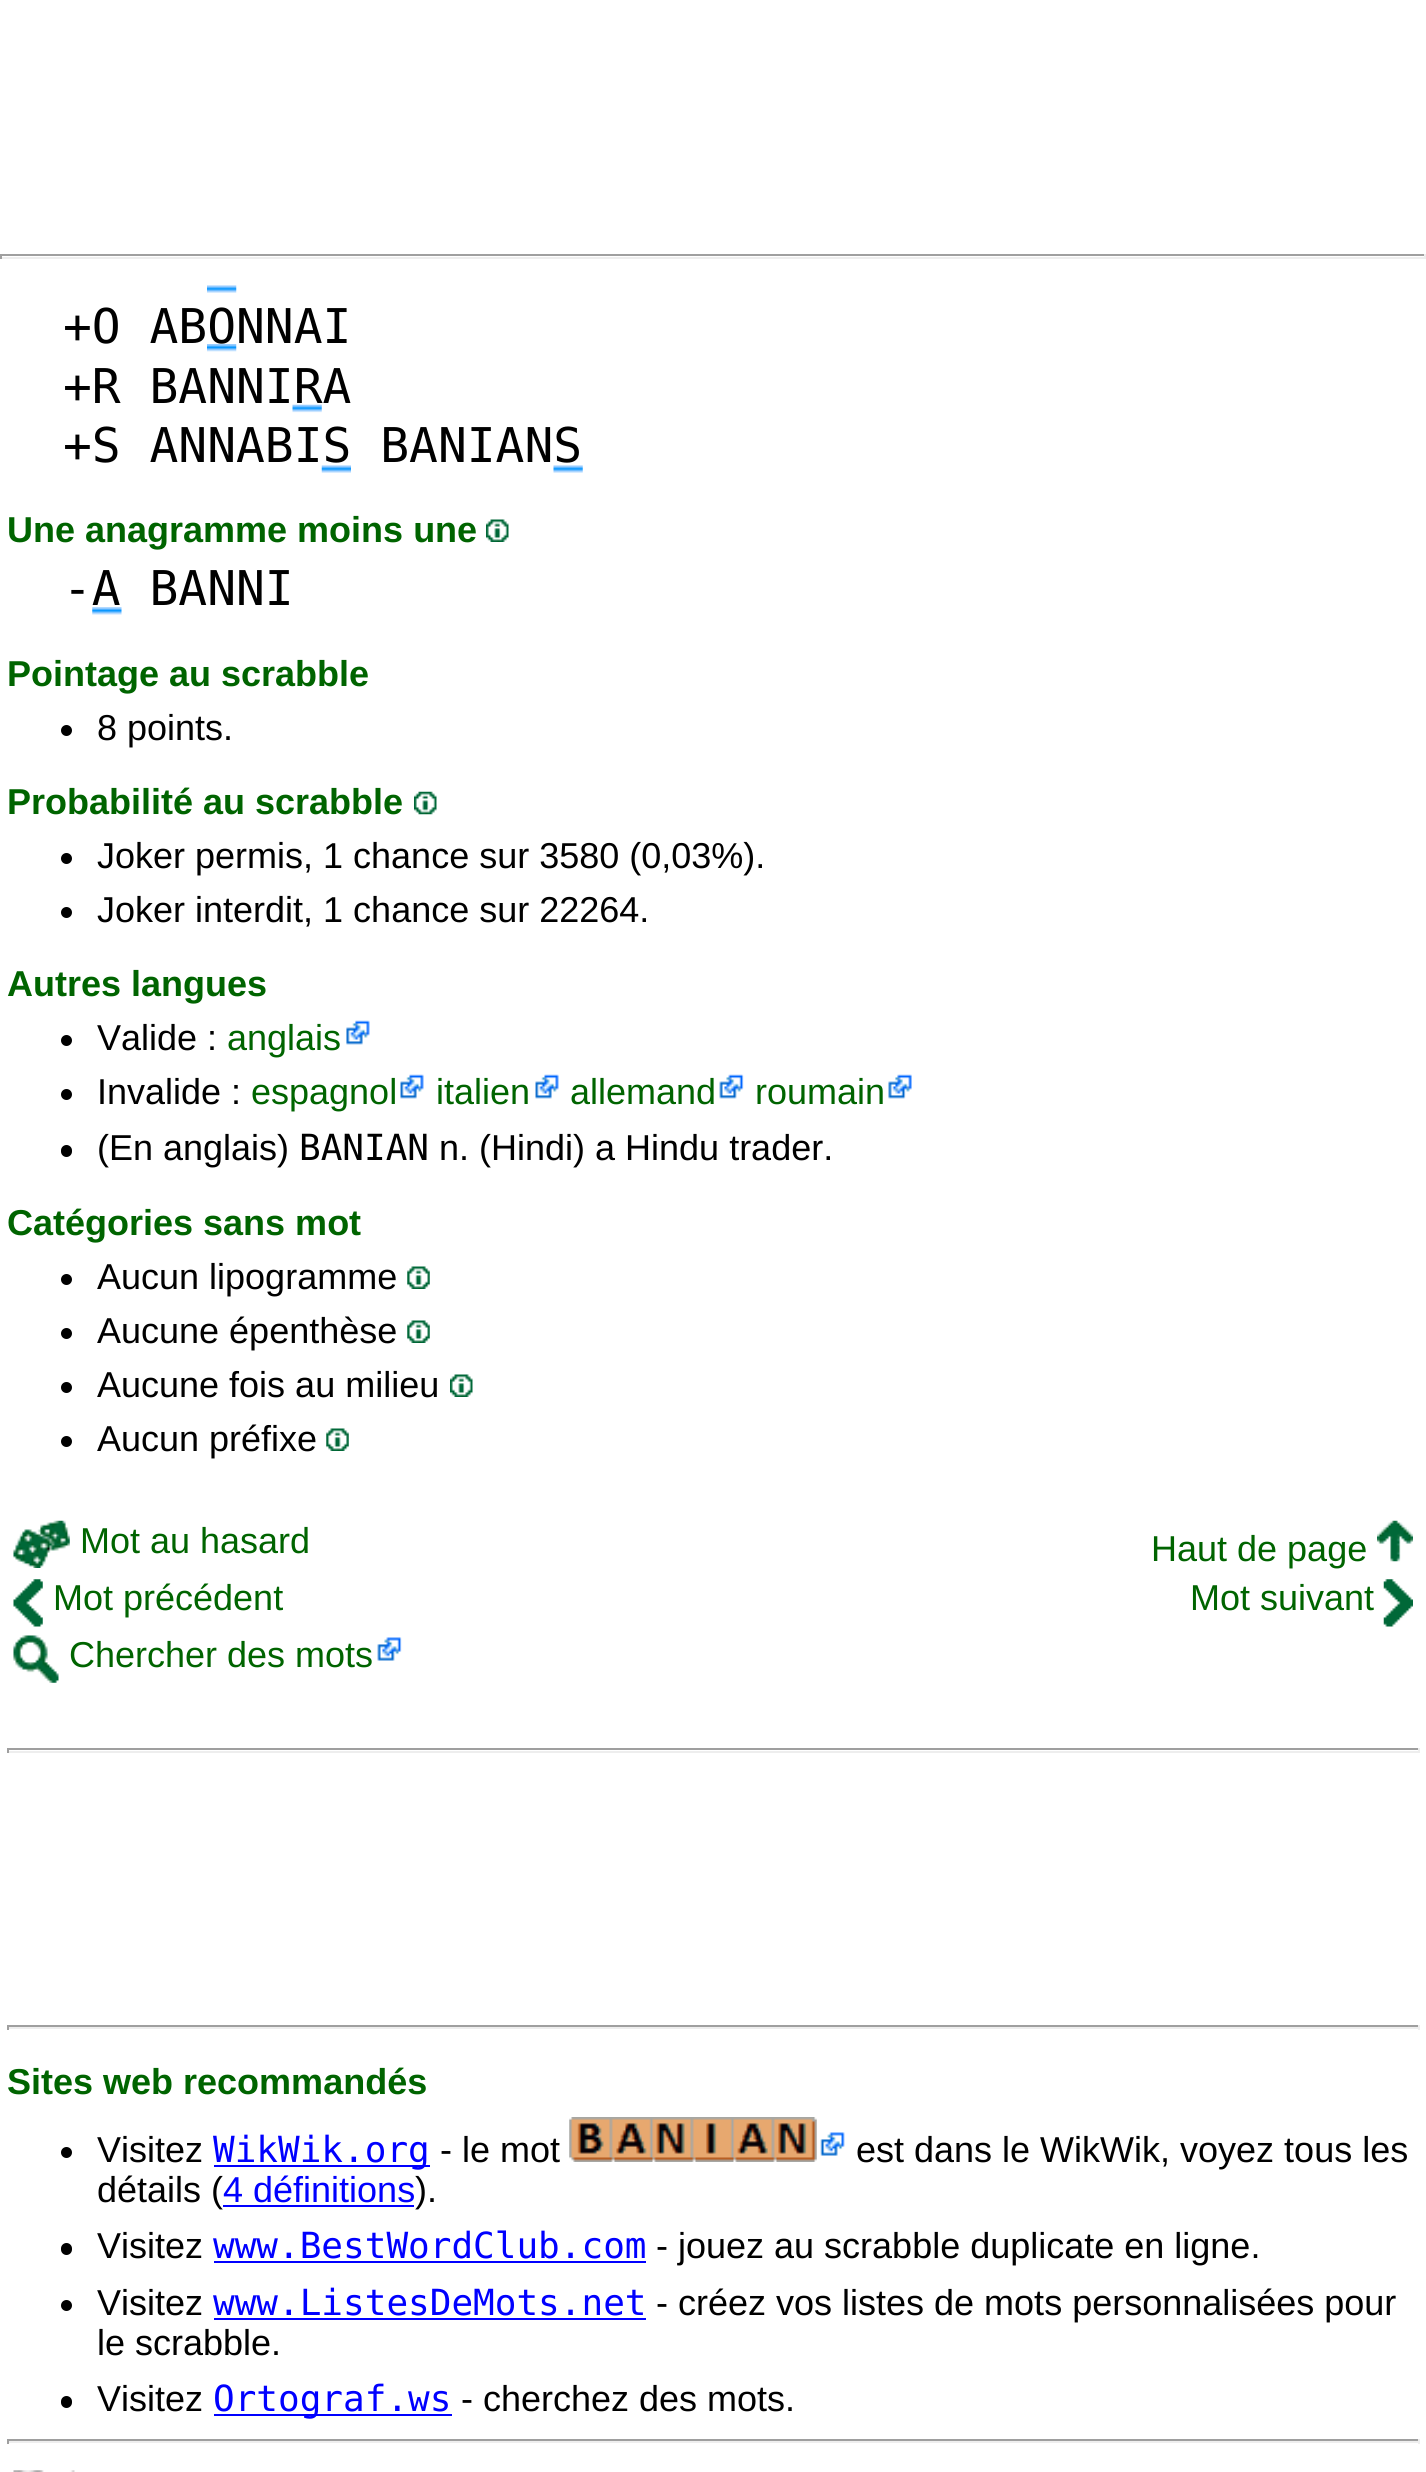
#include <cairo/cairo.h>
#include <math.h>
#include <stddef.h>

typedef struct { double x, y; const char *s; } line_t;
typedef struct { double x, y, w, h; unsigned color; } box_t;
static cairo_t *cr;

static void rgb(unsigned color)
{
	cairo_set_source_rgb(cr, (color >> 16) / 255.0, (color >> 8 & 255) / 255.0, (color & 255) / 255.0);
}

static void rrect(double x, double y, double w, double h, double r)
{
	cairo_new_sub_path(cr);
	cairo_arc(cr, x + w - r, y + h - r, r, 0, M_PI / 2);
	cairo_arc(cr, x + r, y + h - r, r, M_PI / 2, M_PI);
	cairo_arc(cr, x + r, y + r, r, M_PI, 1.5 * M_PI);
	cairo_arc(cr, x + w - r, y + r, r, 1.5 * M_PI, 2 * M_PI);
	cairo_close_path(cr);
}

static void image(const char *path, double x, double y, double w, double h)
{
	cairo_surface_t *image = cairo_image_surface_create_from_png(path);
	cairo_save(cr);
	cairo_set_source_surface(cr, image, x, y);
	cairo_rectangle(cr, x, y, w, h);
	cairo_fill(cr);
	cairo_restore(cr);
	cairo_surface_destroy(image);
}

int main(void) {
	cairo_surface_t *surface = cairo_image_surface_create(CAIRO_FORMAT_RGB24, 1426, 2472);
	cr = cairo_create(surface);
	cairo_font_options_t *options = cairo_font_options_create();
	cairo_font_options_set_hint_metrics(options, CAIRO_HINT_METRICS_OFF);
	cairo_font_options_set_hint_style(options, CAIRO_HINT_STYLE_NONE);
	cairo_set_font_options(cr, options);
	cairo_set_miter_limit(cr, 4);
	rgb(0xffffff);
	cairo_paint(cr);
	{
		static const box_t items[] = {
			{0, 254, 1426, 2, 0x9f9f9f},
			{1424, 254, 2, 5, 0xeeeeee},
			{0, 257, 1426, 2, 0xeeeeee},
			{0, 254, 2, 5, 0x9f9f9f},
		};
		for (size_t i = 0; i < sizeof items / sizeof *items; i++) {
			rgb(items[i].color);
			cairo_rectangle(cr, items[i].x, items[i].y, items[i].w, items[i].h);
			cairo_fill(cr);
		}
	}
	image("img/1.png", 207, 285, 30, 8);
	image("img/2.png", 207, 344, 30, 8);
	image("img/3.png", 292, 404, 30, 9);
	image("img/4.png", 321, 465, 30, 8);
	image("img/5.png", 553, 465, 30, 8);
	image("img/6.png", 486, 519, 23, 23);
	image("img/7.png", 92, 607, 30, 8);
	rgb(0x000000);
	cairo_arc(cr, 66.5, 730.5, 5.5, 0, 2 * M_PI);
	cairo_fill(cr);
	image("img/8.png", 414, 791, 23, 24);
	cairo_arc(cr, 66.5, 858.5, 5.5, 0, 2 * M_PI);
	cairo_fill(cr);
	cairo_arc(cr, 66.5, 912.5, 5.5, 0, 2 * M_PI);
	cairo_fill(cr);
	cairo_arc(cr, 66.5, 1040.5, 5.5, 0, 2 * M_PI);
	cairo_fill(cr);
	image("img/9.png", 346, 1020, 24, 25);
	cairo_arc(cr, 66.5, 1094.5, 5.5, 0, 2 * M_PI);
	cairo_fill(cr);
	image("img/10.png", 400, 1074, 24, 25);
	image("img/10.png", 535, 1074, 24, 25);
	image("img/11.png", 719, 1074, 25, 25);
	image("img/12.png", 888, 1074, 24, 25);
	rrect(61, 1145, 11, 12, 5.5);
	cairo_fill(cr);
	cairo_arc(cr, 66.5, 1279.5, 5.5, 0, 2 * M_PI);
	cairo_fill(cr);
	image("img/13.png", 407, 1266, 23, 23);
	cairo_arc(cr, 66.5, 1333.5, 5.5, 0, 2 * M_PI);
	cairo_fill(cr);
	image("img/13.png", 407, 1320, 23, 23);
	cairo_arc(cr, 66.5, 1387.5, 5.5, 0, 2 * M_PI);
	cairo_fill(cr);
	image("img/6.png", 450, 1374, 23, 23);
	cairo_arc(cr, 66.5, 1441.5, 5.5, 0, 2 * M_PI);
	cairo_fill(cr);
	image("img/14.png", 326, 1428, 23, 23);
	image("img/15.png", 13, 1520, 57, 48);
	image("img/16.png", 1377, 1520, 36, 42);
	image("img/17.png", 13, 1579, 30, 48);
	image("img/18.png", 1383, 1579, 30, 48);
	image("img/19.png", 377, 1637, 25, 24);
	image("img/20.png", 13, 1635, 46, 48);
	{
		static const box_t items[] = {
			{7, 1748, 1413, 2, 0x9f9f9f},
			{1418, 1748, 2, 5, 0xeeeeee},
			{7, 1751, 1413, 2, 0xeeeeee},
			{7, 1748, 2, 5, 0x9f9f9f},
			{7, 2025, 1413, 2, 0x9f9f9f},
			{1418, 2025, 2, 5, 0xeeeeee},
			{7, 2027, 1413, 2, 0xeeeeee},
			{7, 2025, 2, 5, 0x9f9f9f},
		};
		for (size_t i = 0; i < sizeof items / sizeof *items; i++) {
			rgb(items[i].color);
			cairo_rectangle(cr, items[i].x, items[i].y, items[i].w, items[i].h);
			cairo_fill(cr);
		}
	}
	rgb(0x000000);
	cairo_arc(cr, 66.5, 2152.5, 5.5, 0, 2 * M_PI);
	cairo_fill(cr);
	rgb(0x0000ff);
	cairo_rectangle(cr, 214, 2165, 216, 2);
	cairo_fill(cr);
	image("img/21.png", 569, 2117, 248, 45);
	image("img/22.png", 820, 2132, 25, 24);
	cairo_rectangle(cr, 223, 2205, 191, 2);
	cairo_fill(cr);
	rgb(0x000000);
	rrect(61, 2243, 11, 12, 5.5);
	cairo_fill(cr);
	rgb(0x0000ff);
	cairo_rectangle(cr, 214, 2261, 432, 2);
	cairo_fill(cr);
	rgb(0x000000);
	cairo_arc(cr, 66.5, 2305.5, 5.5, 0, 2 * M_PI);
	cairo_fill(cr);
	rgb(0x0000ff);
	cairo_rectangle(cr, 214, 2318, 432, 2);
	cairo_fill(cr);
	rgb(0x000000);
	rrect(61, 2396, 11, 12, 5.5);
	cairo_fill(cr);
	{
		static const box_t items[] = {
			{214, 2414, 238, 2, 0x0000ff},
			{7, 2439, 1413, 2, 0x9f9f9f},
			{1418, 2439, 2, 5, 0xeeeeee},
			{7, 2441, 1413, 2, 0xeeeeee},
			{7, 2439, 2, 5, 0x9f9f9f},
		};
		for (size_t i = 0; i < sizeof items / sizeof *items; i++) {
			rgb(items[i].color);
			cairo_rectangle(cr, items[i].x, items[i].y, items[i].w, items[i].h);
			cairo_fill(cr);
		}
	}
	image("img/23.png", 13, 2470, 62, 2);
	cairo_select_font_face(cr, "DejaVu Sans Mono", CAIRO_FONT_SLANT_NORMAL, CAIRO_FONT_WEIGHT_NORMAL);
	cairo_set_font_size(cr, 47.9);
	rgb(0x000000);
	{
		static const line_t items[] = {
			{63, 343, "+O ABONNAI"},
			{63, 403, "+R BANNIRA"},
			{63, 462, "+S ANNABIS BANIANS"},
		};
		for (size_t i = 0; i < sizeof items / sizeof *items; i++) {
			cairo_move_to(cr, items[i].x, items[i].y);
			cairo_show_text(cr, items[i].s);
		}
	}
	cairo_select_font_face(cr, "Liberation Sans", CAIRO_FONT_SLANT_NORMAL, CAIRO_FONT_WEIGHT_BOLD);
	cairo_set_font_size(cr, 36);
	rgb(0x006400);
	cairo_move_to(cr, 7, 542);
	cairo_show_text(cr, "Une anagramme moins une");
	cairo_select_font_face(cr, "DejaVu Sans Mono", CAIRO_FONT_SLANT_NORMAL, CAIRO_FONT_WEIGHT_NORMAL);
	cairo_set_font_size(cr, 47.9);
	rgb(0x000000);
	cairo_move_to(cr, 63, 605);
	cairo_show_text(cr, "-A BANNI");
	cairo_select_font_face(cr, "Liberation Sans", CAIRO_FONT_SLANT_NORMAL, CAIRO_FONT_WEIGHT_BOLD);
	cairo_set_font_size(cr, 36);
	rgb(0x006400);
	cairo_move_to(cr, 7, 686);
	cairo_show_text(cr, "Pointage au scrabble");
	cairo_select_font_face(cr, "Liberation Sans", CAIRO_FONT_SLANT_NORMAL, CAIRO_FONT_WEIGHT_NORMAL);
	rgb(0x000000);
	cairo_move_to(cr, 97, 740);
	cairo_show_text(cr, "8 points.");
	cairo_select_font_face(cr, "Liberation Sans", CAIRO_FONT_SLANT_NORMAL, CAIRO_FONT_WEIGHT_BOLD);
	rgb(0x006400);
	cairo_move_to(cr, 7, 814);
	cairo_show_text(cr, "Probabilité au scrabble");
	cairo_select_font_face(cr, "Liberation Sans", CAIRO_FONT_SLANT_NORMAL, CAIRO_FONT_WEIGHT_NORMAL);
	rgb(0x000000);
	cairo_move_to(cr, 97, 868);
	cairo_show_text(cr, "Joker permis, 1 chance sur 3580 (0,03%).");
	cairo_move_to(cr, 97, 922);
	cairo_show_text(cr, "Joker interdit, 1 chance sur 22264.");
	cairo_select_font_face(cr, "Liberation Sans", CAIRO_FONT_SLANT_NORMAL, CAIRO_FONT_WEIGHT_BOLD);
	rgb(0x006400);
	cairo_move_to(cr, 7, 996);
	cairo_show_text(cr, "Autres langues");
	cairo_select_font_face(cr, "Liberation Sans", CAIRO_FONT_SLANT_NORMAL, CAIRO_FONT_WEIGHT_NORMAL);
	rgb(0x000000);
	cairo_move_to(cr, 97, 1050);
	cairo_show_text(cr, "Valide :");
	rgb(0x006400);
	cairo_move_to(cr, 227, 1050);
	cairo_show_text(cr, "anglais");
	rgb(0x000000);
	cairo_move_to(cr, 97, 1104);
	cairo_show_text(cr, "Invalide :");
	rgb(0x006400);
	{
		static const line_t items[] = {
			{251, 1104, "espagnol"},
			{436, 1104, "italien"},
			{570, 1104, "allemand"},
			{755, 1104, "roumain"},
		};
		for (size_t i = 0; i < sizeof items / sizeof *items; i++) {
			cairo_move_to(cr, items[i].x, items[i].y);
			cairo_show_text(cr, items[i].s);
		}
	}
	rgb(0x000000);
	cairo_move_to(cr, 97, 1160);
	cairo_show_text(cr, "(En anglais)");
	cairo_select_font_face(cr, "DejaVu Sans Mono", CAIRO_FONT_SLANT_NORMAL, CAIRO_FONT_WEIGHT_NORMAL);
	cairo_move_to(cr, 299, 1160);
	cairo_show_text(cr, "BANIAN");
	cairo_select_font_face(cr, "Liberation Sans", CAIRO_FONT_SLANT_NORMAL, CAIRO_FONT_WEIGHT_NORMAL);
	cairo_move_to(cr, 439, 1160);
	cairo_show_text(cr, "n. (Hindi) a Hindu trader.");
	cairo_select_font_face(cr, "Liberation Sans", CAIRO_FONT_SLANT_NORMAL, CAIRO_FONT_WEIGHT_BOLD);
	rgb(0x006400);
	cairo_move_to(cr, 7, 1235);
	cairo_show_text(cr, "Catégories sans mot");
	cairo_select_font_face(cr, "Liberation Sans", CAIRO_FONT_SLANT_NORMAL, CAIRO_FONT_WEIGHT_NORMAL);
	rgb(0x000000);
	{
		static const line_t items[] = {
			{97, 1289, "Aucun lipogramme"},
			{97, 1343, "Aucune épenthèse"},
			{97, 1397, "Aucune fois au milieu"},
			{97, 1451, "Aucun préfixe"},
		};
		for (size_t i = 0; i < sizeof items / sizeof *items; i++) {
			cairo_move_to(cr, items[i].x, items[i].y);
			cairo_show_text(cr, items[i].s);
		}
	}
	rgb(0x006400);
	{
		static const line_t items[] = {
			{80, 1553, "Mot au hasard"},
			{1151, 1561, "Haut de page"},
			{53, 1610, "Mot précédent"},
			{1190, 1610, "Mot suivant"},
			{69, 1667, "Chercher des mots"},
		};
		for (size_t i = 0; i < sizeof items / sizeof *items; i++) {
			cairo_move_to(cr, items[i].x, items[i].y);
			cairo_show_text(cr, items[i].s);
		}
	}
	cairo_select_font_face(cr, "Liberation Sans", CAIRO_FONT_SLANT_NORMAL, CAIRO_FONT_WEIGHT_BOLD);
	cairo_move_to(cr, 7, 2094);
	cairo_show_text(cr, "Sites web recommandés");
	cairo_select_font_face(cr, "Liberation Sans", CAIRO_FONT_SLANT_NORMAL, CAIRO_FONT_WEIGHT_NORMAL);
	rgb(0x000000);
	cairo_move_to(cr, 97, 2162);
	cairo_show_text(cr, "Visitez");
	cairo_select_font_face(cr, "DejaVu Sans Mono", CAIRO_FONT_SLANT_NORMAL, CAIRO_FONT_WEIGHT_NORMAL);
	rgb(0x0000ff);
	cairo_move_to(cr, 213, 2162);
	cairo_show_text(cr, "WikWik.org");
	cairo_select_font_face(cr, "Liberation Sans", CAIRO_FONT_SLANT_NORMAL, CAIRO_FONT_WEIGHT_NORMAL);
	rgb(0x000000);
	{
		static const line_t items[] = {
			{440, 2162, "- le mot"},
			{856, 2162, "est dans le WikWik, voyez tous les"},
			{97, 2202, "détails ("},
		};
		for (size_t i = 0; i < sizeof items / sizeof *items; i++) {
			cairo_move_to(cr, items[i].x, items[i].y);
			cairo_show_text(cr, items[i].s);
		}
	}
	rgb(0x0000ff);
	cairo_move_to(cr, 223, 2202);
	cairo_show_text(cr, "4 définitions");
	rgb(0x000000);
	cairo_move_to(cr, 415, 2202);
	cairo_show_text(cr, ").");
	cairo_move_to(cr, 97, 2258);
	cairo_show_text(cr, "Visitez");
	cairo_select_font_face(cr, "DejaVu Sans Mono", CAIRO_FONT_SLANT_NORMAL, CAIRO_FONT_WEIGHT_NORMAL);
	rgb(0x0000ff);
	cairo_move_to(cr, 213, 2258);
	cairo_show_text(cr, "www.BestWordClub.com");
	cairo_select_font_face(cr, "Liberation Sans", CAIRO_FONT_SLANT_NORMAL, CAIRO_FONT_WEIGHT_NORMAL);
	rgb(0x000000);
	cairo_move_to(cr, 656, 2258);
	cairo_show_text(cr, "- jouez au scrabble duplicate en ligne.");
	cairo_move_to(cr, 97, 2315);
	cairo_show_text(cr, "Visitez");
	cairo_select_font_face(cr, "DejaVu Sans Mono", CAIRO_FONT_SLANT_NORMAL, CAIRO_FONT_WEIGHT_NORMAL);
	rgb(0x0000ff);
	cairo_move_to(cr, 213, 2315);
	cairo_show_text(cr, "www.ListesDeMots.net");
	cairo_select_font_face(cr, "Liberation Sans", CAIRO_FONT_SLANT_NORMAL, CAIRO_FONT_WEIGHT_NORMAL);
	rgb(0x000000);
	{
		static const line_t items[] = {
			{656, 2315, "- créez vos listes de mots personnalisées pour"},
			{97, 2355, "le scrabble."},
			{97, 2411, "Visitez"},
		};
		for (size_t i = 0; i < sizeof items / sizeof *items; i++) {
			cairo_move_to(cr, items[i].x, items[i].y);
			cairo_show_text(cr, items[i].s);
		}
	}
	cairo_select_font_face(cr, "DejaVu Sans Mono", CAIRO_FONT_SLANT_NORMAL, CAIRO_FONT_WEIGHT_NORMAL);
	rgb(0x0000ff);
	cairo_move_to(cr, 213, 2411);
	cairo_show_text(cr, "Ortograf.ws");
	cairo_select_font_face(cr, "Liberation Sans", CAIRO_FONT_SLANT_NORMAL, CAIRO_FONT_WEIGHT_NORMAL);
	rgb(0x000000);
	cairo_move_to(cr, 461, 2411);
	cairo_show_text(cr, "- cherchez des mots.");
	cairo_surface_write_to_png(surface, "page.png");
	cairo_font_options_destroy(options);
	cairo_destroy(cr);
	cairo_surface_destroy(surface);
	return 0;
}
